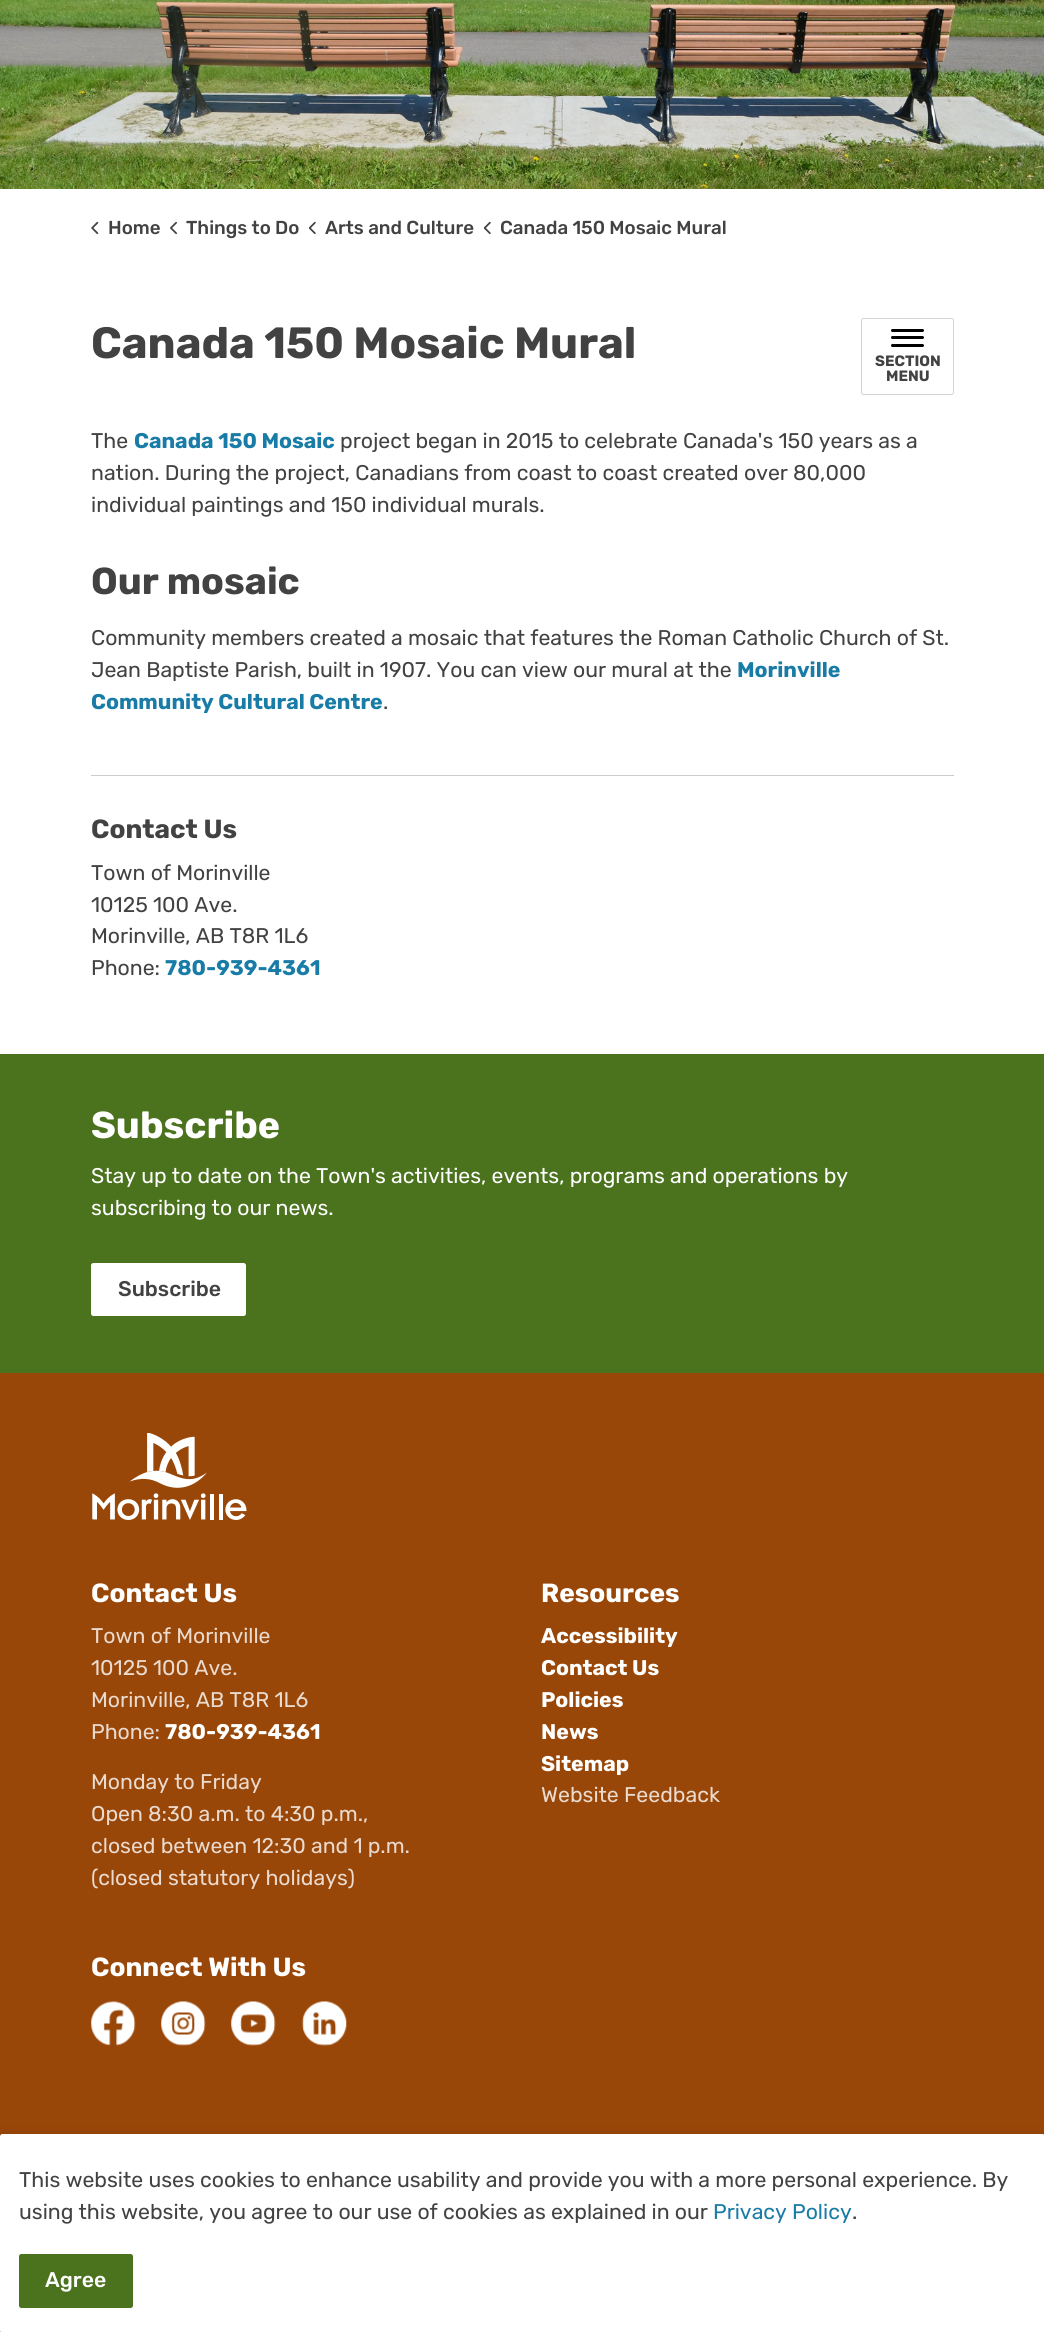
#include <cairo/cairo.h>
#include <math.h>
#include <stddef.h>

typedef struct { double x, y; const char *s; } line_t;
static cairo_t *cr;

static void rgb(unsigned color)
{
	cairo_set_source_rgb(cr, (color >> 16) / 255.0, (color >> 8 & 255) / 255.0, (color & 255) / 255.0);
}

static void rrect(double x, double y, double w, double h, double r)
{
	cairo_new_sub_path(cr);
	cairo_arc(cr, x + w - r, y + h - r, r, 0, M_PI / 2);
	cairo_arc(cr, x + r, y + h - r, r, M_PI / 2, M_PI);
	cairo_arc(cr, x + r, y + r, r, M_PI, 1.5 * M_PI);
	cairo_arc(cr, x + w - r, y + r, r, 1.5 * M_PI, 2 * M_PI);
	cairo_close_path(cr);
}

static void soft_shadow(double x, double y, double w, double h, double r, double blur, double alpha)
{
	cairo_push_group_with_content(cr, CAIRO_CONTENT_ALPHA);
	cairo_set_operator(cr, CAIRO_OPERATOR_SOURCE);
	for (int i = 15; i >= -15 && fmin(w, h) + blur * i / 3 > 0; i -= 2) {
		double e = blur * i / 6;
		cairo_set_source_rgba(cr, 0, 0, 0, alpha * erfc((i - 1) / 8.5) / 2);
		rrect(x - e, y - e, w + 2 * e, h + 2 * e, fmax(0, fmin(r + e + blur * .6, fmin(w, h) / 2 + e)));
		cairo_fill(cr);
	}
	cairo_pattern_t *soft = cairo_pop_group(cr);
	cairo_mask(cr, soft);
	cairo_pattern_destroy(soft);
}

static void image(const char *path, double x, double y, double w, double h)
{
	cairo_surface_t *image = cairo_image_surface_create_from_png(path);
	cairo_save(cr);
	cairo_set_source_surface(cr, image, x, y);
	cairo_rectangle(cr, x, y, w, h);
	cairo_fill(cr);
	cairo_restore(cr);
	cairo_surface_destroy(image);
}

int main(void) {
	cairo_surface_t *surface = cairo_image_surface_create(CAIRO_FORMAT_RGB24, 1044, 2332);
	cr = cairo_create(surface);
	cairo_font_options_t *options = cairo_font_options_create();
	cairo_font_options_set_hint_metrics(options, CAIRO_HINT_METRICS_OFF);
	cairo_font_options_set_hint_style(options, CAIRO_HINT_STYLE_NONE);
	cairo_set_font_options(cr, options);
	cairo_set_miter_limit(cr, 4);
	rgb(0xffffff);
	cairo_paint(cr);
	image("img/1.png", 0, 0, 1044, 189);
	image("img/2.png", 91, 221, 8, 14);
	image("img/3.png", 170, 221, 7, 14);
	image("img/4.png", 309, 221, 7, 14);
	image("img/4.png", 484, 221, 7, 14);
	rrect(861.5, 318.5, 92, 76, 2);
	rgb(0xd4d4d4);
	cairo_set_line_width(cr, 1);
	cairo_stroke(cr);
	rgb(0x000000);
	rrect(891, 336, 33, 3, 1.5);
	cairo_fill(cr);
	rrect(891, 329, 33, 3, 1.5);
	cairo_fill(cr);
	rrect(891, 344, 33, 3, 1.5);
	cairo_fill(cr);
	rgb(0xcccccc);
	cairo_rectangle(cr, 91, 775, 863, 1);
	cairo_fill(cr);
	rgb(0x4b721d);
	cairo_rectangle(cr, 0, 1054, 1044, 319);
	cairo_fill(cr);
	rgb(0xffffff);
	rrect(91.5, 1263.5, 154, 52, 2);
	cairo_fill_preserve(cr);
	cairo_stroke(cr);
	rgb(0x994708);
	cairo_rectangle(cr, 0, 1373, 1044, 959);
	cairo_fill(cr);
	image("img/5.png", 92, 1433, 155, 87);
	image("img/6.png", 91, 2001, 45, 45);
	image("img/7.png", 161, 2001, 45, 45);
	image("img/8.png", 231, 2001, 45, 45);
	image("img/9.png", 302, 2001, 45, 45);
	rgb(0x000000);
	soft_shadow(0, 2134, 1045, 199, 2.5, 6, 0.1);
	rgb(0xffffff);
	rrect(0, 2134, 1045, 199, 2.5);
	cairo_fill(cr);
	rgb(0x4b721d);
	rrect(19.5, 2254.5, 113, 53, 2);
	cairo_fill_preserve(cr);
	cairo_stroke(cr);
	cairo_select_font_face(cr, "Rubik Medium", CAIRO_FONT_SLANT_NORMAL, CAIRO_FONT_WEIGHT_NORMAL);
	cairo_set_font_size(cr, 18.75);
	rgb(0x424242);
	{
		static const line_t items[] = {
			{108, 234, "Home"},
			{186, 234, "Things to Do"},
			{325, 234, "Arts and Culture"},
			{500, 234, "Canada 150 Mosaic Mural"},
		};
		for (size_t i = 0; i < sizeof items / sizeof *items; i++) {
			cairo_move_to(cr, items[i].x, items[i].y);
			cairo_show_text(cr, items[i].s);
		}
	}
	cairo_select_font_face(cr, "Rubik", CAIRO_FONT_SLANT_NORMAL, CAIRO_FONT_WEIGHT_BOLD);
	cairo_set_font_size(cr, 43.75);
	cairo_move_to(cr, 91, 358);
	cairo_show_text(cr, "Canada 150 Mosaic Mural");
	cairo_set_font_size(cr, 15);
	cairo_move_to(cr, 875, 366);
	cairo_show_text(cr, "SECTION");
	cairo_move_to(cr, 886, 381);
	cairo_show_text(cr, "MENU");
	cairo_select_font_face(cr, "Rubik", CAIRO_FONT_SLANT_NORMAL, CAIRO_FONT_WEIGHT_NORMAL);
	cairo_set_font_size(cr, 21.25);
	cairo_move_to(cr, 91, 448);
	cairo_show_text(cr, "The");
	cairo_select_font_face(cr, "Rubik", CAIRO_FONT_SLANT_NORMAL, CAIRO_FONT_WEIGHT_BOLD);
	rgb(0x197ca7);
	cairo_move_to(cr, 134, 448);
	cairo_show_text(cr, "Canada 150 Mosaic");
	cairo_select_font_face(cr, "Rubik", CAIRO_FONT_SLANT_NORMAL, CAIRO_FONT_WEIGHT_NORMAL);
	rgb(0x424242);
	{
		static const line_t items[] = {
			{340, 448, "project began in 2015 to celebrate Canada's 150 years as a"},
			{91, 480, "nation. During the project, Canadians from coast to coast created over 80,000"},
			{91, 512, "individual paintings and 150 individual murals."},
		};
		for (size_t i = 0; i < sizeof items / sizeof *items; i++) {
			cairo_move_to(cr, items[i].x, items[i].y);
			cairo_show_text(cr, items[i].s);
		}
	}
	cairo_select_font_face(cr, "Rubik", CAIRO_FONT_SLANT_NORMAL, CAIRO_FONT_WEIGHT_BOLD);
	cairo_set_font_size(cr, 37.5);
	cairo_move_to(cr, 91, 594);
	cairo_show_text(cr, "Our mosaic");
	cairo_select_font_face(cr, "Rubik", CAIRO_FONT_SLANT_NORMAL, CAIRO_FONT_WEIGHT_NORMAL);
	cairo_set_font_size(cr, 21.25);
	cairo_move_to(cr, 91, 645);
	cairo_show_text(cr, "Community members created a mosaic that features the Roman Catholic Church of St.");
	cairo_move_to(cr, 91, 677);
	cairo_show_text(cr, "Jean Baptiste Parish, built in 1907. You can view our mural at the");
	cairo_select_font_face(cr, "Rubik", CAIRO_FONT_SLANT_NORMAL, CAIRO_FONT_WEIGHT_BOLD);
	rgb(0x197ca7);
	cairo_move_to(cr, 737, 677);
	cairo_show_text(cr, "Morinville");
	cairo_move_to(cr, 91, 709);
	cairo_show_text(cr, "Community Cultural Centre");
	cairo_select_font_face(cr, "Rubik", CAIRO_FONT_SLANT_NORMAL, CAIRO_FONT_WEIGHT_NORMAL);
	rgb(0x424242);
	cairo_move_to(cr, 383, 709);
	cairo_show_text(cr, ".");
	cairo_select_font_face(cr, "Rubik", CAIRO_FONT_SLANT_NORMAL, CAIRO_FONT_WEIGHT_BOLD);
	cairo_set_font_size(cr, 26.25);
	cairo_move_to(cr, 91, 838);
	cairo_show_text(cr, "Contact Us");
	cairo_select_font_face(cr, "Rubik", CAIRO_FONT_SLANT_NORMAL, CAIRO_FONT_WEIGHT_NORMAL);
	cairo_set_font_size(cr, 21.25);
	{
		static const line_t items[] = {
			{91, 880, "Town of Morinville"},
			{91, 912, "10125 100 Ave."},
			{91, 943, "Morinville, AB T8R 1L6"},
			{91, 975, "Phone:"},
		};
		for (size_t i = 0; i < sizeof items / sizeof *items; i++) {
			cairo_move_to(cr, items[i].x, items[i].y);
			cairo_show_text(cr, items[i].s);
		}
	}
	cairo_select_font_face(cr, "Rubik", CAIRO_FONT_SLANT_NORMAL, CAIRO_FONT_WEIGHT_BOLD);
	rgb(0x197ca7);
	cairo_move_to(cr, 165, 975);
	cairo_show_text(cr, "780-939-4361");
	cairo_set_font_size(cr, 37.5);
	rgb(0xffffff);
	cairo_move_to(cr, 91, 1138);
	cairo_show_text(cr, "Subscribe");
	cairo_select_font_face(cr, "Rubik", CAIRO_FONT_SLANT_NORMAL, CAIRO_FONT_WEIGHT_NORMAL);
	cairo_set_font_size(cr, 21.25);
	cairo_move_to(cr, 91, 1183);
	cairo_show_text(cr, "Stay up to date on the Town's activities, events, programs and operations by");
	cairo_move_to(cr, 91, 1215);
	cairo_show_text(cr, "subscribing to our news.");
	cairo_select_font_face(cr, "Rubik Medium", CAIRO_FONT_SLANT_NORMAL, CAIRO_FONT_WEIGHT_NORMAL);
	rgb(0x424242);
	cairo_move_to(cr, 118, 1296);
	cairo_show_text(cr, "Subscribe");
	cairo_select_font_face(cr, "Rubik", CAIRO_FONT_SLANT_NORMAL, CAIRO_FONT_WEIGHT_BOLD);
	cairo_set_font_size(cr, 26.25);
	rgb(0xffffff);
	cairo_move_to(cr, 91, 1602);
	cairo_show_text(cr, "Contact Us");
	cairo_select_font_face(cr, "Rubik", CAIRO_FONT_SLANT_NORMAL, CAIRO_FONT_WEIGHT_NORMAL);
	cairo_set_font_size(cr, 21.25);
	rgb(0xebdace);
	{
		static const line_t items[] = {
			{91, 1643, "Town of Morinville"},
			{91, 1675, "10125 100 Ave."},
			{91, 1707, "Morinville, AB T8R 1L6"},
			{91, 1739, "Phone:"},
		};
		for (size_t i = 0; i < sizeof items / sizeof *items; i++) {
			cairo_move_to(cr, items[i].x, items[i].y);
			cairo_show_text(cr, items[i].s);
		}
	}
	cairo_select_font_face(cr, "Rubik", CAIRO_FONT_SLANT_NORMAL, CAIRO_FONT_WEIGHT_BOLD);
	rgb(0xffffff);
	cairo_move_to(cr, 165, 1739);
	cairo_show_text(cr, "780-939-4361");
	cairo_select_font_face(cr, "Rubik", CAIRO_FONT_SLANT_NORMAL, CAIRO_FONT_WEIGHT_NORMAL);
	rgb(0xebdace);
	{
		static const line_t items[] = {
			{91, 1789, "Monday to Friday"},
			{91, 1821, "Open 8:30 a.m. to 4:30 p.m.,"},
			{91, 1853, "closed between 12:30 and 1 p.m."},
			{91, 1885, "(closed statutory holidays)"},
		};
		for (size_t i = 0; i < sizeof items / sizeof *items; i++) {
			cairo_move_to(cr, items[i].x, items[i].y);
			cairo_show_text(cr, items[i].s);
		}
	}
	cairo_select_font_face(cr, "Rubik", CAIRO_FONT_SLANT_NORMAL, CAIRO_FONT_WEIGHT_BOLD);
	cairo_set_font_size(cr, 26.25);
	rgb(0xffffff);
	cairo_move_to(cr, 541, 1602);
	cairo_show_text(cr, "Resources");
	cairo_set_font_size(cr, 21.25);
	{
		static const line_t items[] = {
			{541, 1643, "Accessibility"},
			{541, 1675, "Contact Us"},
			{541, 1707, "Policies"},
			{541, 1739, "News"},
			{541, 1771, "Sitemap"},
		};
		for (size_t i = 0; i < sizeof items / sizeof *items; i++) {
			cairo_move_to(cr, items[i].x, items[i].y);
			cairo_show_text(cr, items[i].s);
		}
	}
	cairo_select_font_face(cr, "Rubik", CAIRO_FONT_SLANT_NORMAL, CAIRO_FONT_WEIGHT_NORMAL);
	rgb(0xebdace);
	cairo_move_to(cr, 541, 1802);
	cairo_show_text(cr, "Website Feedback");
	cairo_select_font_face(cr, "Rubik", CAIRO_FONT_SLANT_NORMAL, CAIRO_FONT_WEIGHT_BOLD);
	cairo_set_font_size(cr, 26.25);
	rgb(0xffffff);
	cairo_move_to(cr, 91, 1976);
	cairo_show_text(cr, "Connect With Us");
	cairo_select_font_face(cr, "Rubik", CAIRO_FONT_SLANT_NORMAL, CAIRO_FONT_WEIGHT_NORMAL);
	cairo_set_font_size(cr, 21.25);
	rgb(0x424242);
	cairo_move_to(cr, 19, 2187);
	cairo_show_text(cr, "This website uses cookies to enhance usability and provide you with a more personal experience. By");
	cairo_move_to(cr, 19, 2219);
	cairo_show_text(cr, "using this website, you agree to our use of cookies as explained in our");
	rgb(0x197ca7);
	cairo_move_to(cr, 713, 2219);
	cairo_show_text(cr, "Privacy Policy");
	rgb(0x424242);
	cairo_move_to(cr, 852, 2219);
	cairo_show_text(cr, ".");
	cairo_select_font_face(cr, "Rubik Medium", CAIRO_FONT_SLANT_NORMAL, CAIRO_FONT_WEIGHT_NORMAL);
	rgb(0xffffff);
	cairo_move_to(cr, 45, 2287);
	cairo_show_text(cr, "Agree");
	cairo_surface_write_to_png(surface, "page.png");
	cairo_font_options_destroy(options);
	cairo_destroy(cr);
	cairo_surface_destroy(surface);
	return 0;
}
